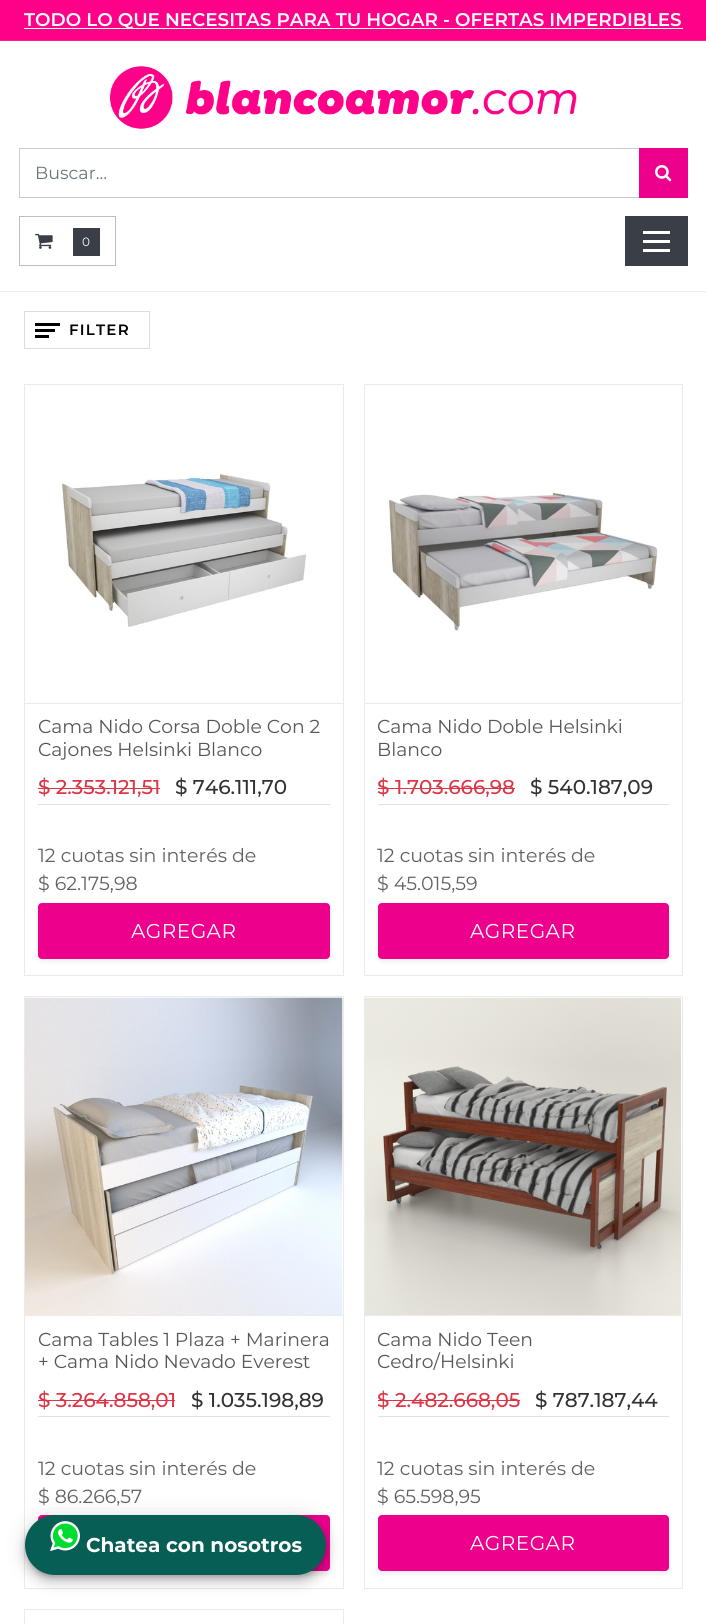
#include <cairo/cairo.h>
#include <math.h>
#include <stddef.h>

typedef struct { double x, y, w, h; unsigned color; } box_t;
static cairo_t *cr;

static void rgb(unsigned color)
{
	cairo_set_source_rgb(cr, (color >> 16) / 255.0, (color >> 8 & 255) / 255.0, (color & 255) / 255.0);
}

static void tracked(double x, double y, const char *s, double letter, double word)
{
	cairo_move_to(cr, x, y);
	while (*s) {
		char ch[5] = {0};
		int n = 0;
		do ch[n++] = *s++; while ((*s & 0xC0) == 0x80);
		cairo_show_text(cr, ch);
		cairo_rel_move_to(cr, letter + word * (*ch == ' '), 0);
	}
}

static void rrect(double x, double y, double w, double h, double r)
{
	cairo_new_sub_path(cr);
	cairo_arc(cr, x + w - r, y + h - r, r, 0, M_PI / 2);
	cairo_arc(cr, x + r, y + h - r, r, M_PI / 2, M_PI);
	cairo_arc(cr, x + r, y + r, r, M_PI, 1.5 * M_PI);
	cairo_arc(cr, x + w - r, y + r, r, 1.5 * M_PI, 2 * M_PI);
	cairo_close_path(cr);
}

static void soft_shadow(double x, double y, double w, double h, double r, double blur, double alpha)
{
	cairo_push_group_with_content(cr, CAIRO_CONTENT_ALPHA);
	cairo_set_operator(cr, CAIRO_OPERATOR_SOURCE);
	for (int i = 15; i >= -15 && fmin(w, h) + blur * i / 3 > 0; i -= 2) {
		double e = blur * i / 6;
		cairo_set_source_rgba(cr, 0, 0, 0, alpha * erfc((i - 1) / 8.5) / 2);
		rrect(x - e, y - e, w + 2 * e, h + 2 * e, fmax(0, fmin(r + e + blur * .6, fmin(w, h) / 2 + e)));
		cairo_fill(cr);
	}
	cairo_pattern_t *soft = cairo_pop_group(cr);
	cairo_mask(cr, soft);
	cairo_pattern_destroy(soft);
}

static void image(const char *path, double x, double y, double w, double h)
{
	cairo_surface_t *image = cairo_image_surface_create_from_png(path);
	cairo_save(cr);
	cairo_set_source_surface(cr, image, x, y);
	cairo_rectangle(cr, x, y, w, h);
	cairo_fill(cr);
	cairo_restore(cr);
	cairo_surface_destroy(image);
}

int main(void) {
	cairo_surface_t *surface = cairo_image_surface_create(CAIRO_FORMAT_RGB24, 706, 1624);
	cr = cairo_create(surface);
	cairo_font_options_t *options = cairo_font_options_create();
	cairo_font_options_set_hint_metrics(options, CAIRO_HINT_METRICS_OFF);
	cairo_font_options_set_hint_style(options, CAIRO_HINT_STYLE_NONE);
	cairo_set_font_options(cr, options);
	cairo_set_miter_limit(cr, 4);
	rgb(0xffffff);
	cairo_paint(cr);
	{
		static const box_t items[] = {
			{0, 0, 706, 40, 0xff0188},
			{0, 40, 706, 1, 0xff1a94},
			{24, 28, 659, 1, 0xffffff},
		};
		for (size_t i = 0; i < sizeof items / sizeof *items; i++) {
			rgb(items[i].color);
			cairo_rectangle(cr, items[i].x, items[i].y, items[i].w, items[i].h);
			cairo_fill(cr);
		}
	}
	image("img/1.png", 110, 66, 467, 63);
	cairo_rectangle(cr, 19.5, 148.5, 620, 49);
	rgb(0xcccccc);
	cairo_set_line_width(cr, 1);
	cairo_stroke(cr);
	rgb(0xec008c);
	cairo_rectangle(cr, 639, 148, 49, 50);
	cairo_fill(cr);
	image("img/2.png", 655, 165, 17, 17);
	cairo_rectangle(cr, 19.5, 216.5, 96, 49);
	rgb(0xbdbdbd);
	cairo_stroke(cr);
	image("img/3.png", 35, 233, 18, 16);
	{
		static const box_t items[] = {
			{73, 228, 27, 28, 0x3a3e46},
			{625, 216, 63, 50, 0x3a3e46},
			{643, 231, 27, 3, 0xffffff},
			{643, 249, 27, 3, 0xffffff},
			{643, 240, 27, 3, 0xffffff},
			{0, 291, 706, 1, 0xeeeeee},
		};
		for (size_t i = 0; i < sizeof items / sizeof *items; i++) {
			rgb(items[i].color);
			cairo_rectangle(cr, items[i].x, items[i].y, items[i].w, items[i].h);
			cairo_fill(cr);
		}
	}
	cairo_rectangle(cr, 24.5, 311.5, 125, 37);
	rgb(0xdddddd);
	cairo_stroke(cr);
	{
		static const box_t items[] = {
			{35, 329, 20, 3, 0x000000},
			{35, 323, 25, 3, 0x000000},
			{35, 335, 14, 3, 0x000000},
		};
		for (size_t i = 0; i < sizeof items / sizeof *items; i++) {
			rgb(items[i].color);
			cairo_rectangle(cr, items[i].x, items[i].y, items[i].w, items[i].h);
			cairo_fill(cr);
		}
	}
	cairo_rectangle(cr, 24.5, 384.5, 319, 591);
	rgb(0xebebeb);
	cairo_stroke(cr);
	image("img/4.png", 61, 473, 246, 154);
	{
		static const box_t items[] = {
			{25, 703, 318, 1, 0xebebeb},
			{38, 804, 292, 1, 0xe1e1e1},
			{38, 788, 122, 1, 0xdc3545},
		};
		for (size_t i = 0; i < sizeof items / sizeof *items; i++) {
			rgb(items[i].color);
			cairo_rectangle(cr, items[i].x, items[i].y, items[i].w, items[i].h);
			cairo_fill(cr);
		}
	}
	rgb(0x000000);
	soft_shadow(38, 905, 292, 56, 4, 2.5, 0.08);
	rgb(0xec008c);
	rrect(38, 903, 292, 56, 4);
	cairo_fill(cr);
	cairo_rectangle(cr, 364.5, 384.5, 318, 591);
	rgb(0xebebeb);
	cairo_stroke(cr);
	image("img/5.png", 388, 492, 270, 139);
	{
		static const box_t items[] = {
			{365, 703, 316, 1, 0xebebeb},
			{378, 804, 291, 1, 0xe1e1e1},
			{378, 788, 17, 1, 0xdc3545},
			{395, 788, 120, 1, 0xdc3545},
		};
		for (size_t i = 0; i < sizeof items / sizeof *items; i++) {
			rgb(items[i].color);
			cairo_rectangle(cr, items[i].x, items[i].y, items[i].w, items[i].h);
			cairo_fill(cr);
		}
	}
	rgb(0x000000);
	soft_shadow(378, 905, 291, 56, 4, 2.5, 0.08);
	rgb(0xec008c);
	rrect(378, 903, 291, 56, 4);
	cairo_fill(cr);
	cairo_rectangle(cr, 24.5, 996.5, 319, 592);
	rgb(0xebebeb);
	cairo_stroke(cr);
	image("img/6.png", 25, 997, 318, 318);
	{
		static const box_t items[] = {
			{25, 1315, 318, 1, 0xebebeb},
			{38, 1416, 292, 1, 0xe1e1e1},
			{38, 1400, 137, 1, 0xdc3545},
		};
		for (size_t i = 0; i < sizeof items / sizeof *items; i++) {
			rgb(items[i].color);
			cairo_rectangle(cr, items[i].x, items[i].y, items[i].w, items[i].h);
			cairo_fill(cr);
		}
	}
	rgb(0x000000);
	soft_shadow(38, 1518, 292, 56, 4, 2.5, 0.08);
	rgb(0xec008c);
	rrect(38, 1515, 292, 56, 4);
	cairo_fill(cr);
	cairo_rectangle(cr, 364.5, 996.5, 318, 592);
	rgb(0xebebeb);
	cairo_stroke(cr);
	image("img/7.png", 365, 997, 316, 318);
	{
		static const box_t items[] = {
			{365, 1315, 316, 1, 0xebebeb},
			{378, 1416, 291, 1, 0xe1e1e1},
			{378, 1400, 17, 1, 0xdc3545},
			{395, 1400, 125, 1, 0xdc3545},
		};
		for (size_t i = 0; i < sizeof items / sizeof *items; i++) {
			rgb(items[i].color);
			cairo_rectangle(cr, items[i].x, items[i].y, items[i].w, items[i].h);
			cairo_fill(cr);
		}
	}
	rgb(0x000000);
	soft_shadow(378, 1518, 291, 56, 4, 2.5, 0.08);
	rgb(0xec008c);
	rrect(378, 1515, 291, 56, 4);
	cairo_fill(cr);
	cairo_rectangle(cr, 24.5, 1609.5, 319, 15);
	rgb(0xebebeb);
	cairo_stroke(cr);
	rgb(0x000000);
	soft_shadow(25, 1516, 301, 60, 30, 11, 0.12);
	soft_shadow(25, 1523, 301, 60, 30, 6, 0.14);
	soft_shadow(26, 1520, 299, 58, 29, 3, 0.2);
	rgb(0x075e54);
	rrect(25, 1515, 301, 60, 30);
	cairo_fill(cr);
	image("img/8.png", 50, 1521, 30, 30);
	cairo_select_font_face(cr, "Montserrat SemiBold", CAIRO_FONT_SLANT_NORMAL, CAIRO_FONT_WEIGHT_NORMAL);
	cairo_set_font_size(cr, 18.35);
	rgb(0xffffff);
	cairo_move_to(cr, 24, 26);
	cairo_show_text(cr, "TODO LO QUE NECESITAS PARA TU HOGAR - OFERTAS IMPERDIBLES");
	cairo_select_font_face(cr, "Montserrat", CAIRO_FONT_SLANT_NORMAL, CAIRO_FONT_WEIGHT_NORMAL);
	cairo_set_font_size(cr, 17.5);
	rgb(0x6c757d);
	cairo_move_to(cr, 35, 179);
	cairo_show_text(cr, "Buscar…");
	cairo_set_font_size(cr, 12);
	rgb(0xffffff);
	cairo_move_to(cr, 82, 246);
	cairo_show_text(cr, "0");
	cairo_select_font_face(cr, "Montserrat SemiBold", CAIRO_FONT_SLANT_NORMAL, CAIRO_FONT_WEIGHT_NORMAL);
	cairo_set_font_size(cr, 15);
	rgb(0x000000);
	tracked(69, 335, "FILTER", 1.25, 0);
	cairo_select_font_face(cr, "Montserrat", CAIRO_FONT_SLANT_NORMAL, CAIRO_FONT_WEIGHT_NORMAL);
	cairo_set_font_size(cr, 18.75);
	rgb(0x575757);
	cairo_move_to(cr, 38, 733);
	cairo_show_text(cr, "Cama Nido Corsa Doble Con 2");
	cairo_move_to(cr, 38, 756);
	cairo_show_text(cr, "Cajones Helsinki Blanco");
	cairo_select_font_face(cr, "Montserrat Medium", CAIRO_FONT_SLANT_NORMAL, CAIRO_FONT_WEIGHT_NORMAL);
	cairo_set_font_size(cr, 20);
	rgb(0xdc3545);
	cairo_move_to(cr, 38, 794);
	cairo_show_text(cr, "$ 2.353.121,51");
	rgb(0x323232);
	cairo_move_to(cr, 175, 794);
	cairo_show_text(cr, "$ 746.111,70");
	cairo_select_font_face(cr, "Montserrat", CAIRO_FONT_SLANT_NORMAL, CAIRO_FONT_WEIGHT_NORMAL);
	cairo_set_font_size(cr, 19);
	rgb(0x616161);
	cairo_move_to(cr, 38, 862);
	cairo_show_text(cr, "12 cuotas sin interés de");
	cairo_move_to(cr, 38, 890);
	cairo_show_text(cr, "$ 62.175,98");
	cairo_set_font_size(cr, 20);
	rgb(0xffffff);
	tracked(131, 938, "AGREGAR", 0.5, 0);
	cairo_set_font_size(cr, 18.75);
	rgb(0x575757);
	cairo_move_to(cr, 377, 733);
	cairo_show_text(cr, "Cama Nido Doble Helsinki");
	cairo_move_to(cr, 377, 756);
	cairo_show_text(cr, "Blanco");
	cairo_select_font_face(cr, "Montserrat Medium", CAIRO_FONT_SLANT_NORMAL, CAIRO_FONT_WEIGHT_NORMAL);
	cairo_set_font_size(cr, 20);
	rgb(0xdc3545);
	cairo_move_to(cr, 377, 794);
	cairo_show_text(cr, "$");
	cairo_move_to(cr, 395, 794);
	cairo_show_text(cr, "1.703.666,98");
	rgb(0x323232);
	cairo_move_to(cr, 530, 794);
	cairo_show_text(cr, "$ 540.187,09");
	cairo_select_font_face(cr, "Montserrat", CAIRO_FONT_SLANT_NORMAL, CAIRO_FONT_WEIGHT_NORMAL);
	cairo_set_font_size(cr, 19);
	rgb(0x616161);
	cairo_move_to(cr, 377, 862);
	cairo_show_text(cr, "12 cuotas sin interés de");
	cairo_move_to(cr, 377, 890);
	cairo_show_text(cr, "$ 45.015,59");
	cairo_set_font_size(cr, 20);
	rgb(0xffffff);
	tracked(470, 938, "AGREGAR", 0.5, 0);
	cairo_set_font_size(cr, 18.75);
	rgb(0x575757);
	cairo_move_to(cr, 38, 1346);
	cairo_show_text(cr, "Cama Tables 1 Plaza + Marinera");
	cairo_move_to(cr, 38, 1368);
	cairo_show_text(cr, "+ Cama Nido Nevado Everest");
	cairo_select_font_face(cr, "Montserrat Medium", CAIRO_FONT_SLANT_NORMAL, CAIRO_FONT_WEIGHT_NORMAL);
	cairo_set_font_size(cr, 20);
	rgb(0xdc3545);
	cairo_move_to(cr, 38, 1407);
	cairo_show_text(cr, "$ 3.264.858,01");
	rgb(0x323232);
	cairo_move_to(cr, 191, 1407);
	cairo_show_text(cr, "$ 1.035.198,89");
	cairo_select_font_face(cr, "Montserrat", CAIRO_FONT_SLANT_NORMAL, CAIRO_FONT_WEIGHT_NORMAL);
	cairo_set_font_size(cr, 19);
	rgb(0x616161);
	cairo_move_to(cr, 38, 1475);
	cairo_show_text(cr, "12 cuotas sin interés de");
	cairo_move_to(cr, 38, 1503);
	cairo_show_text(cr, "$ 86.266,57");
	cairo_set_font_size(cr, 18.75);
	rgb(0x575757);
	cairo_move_to(cr, 377, 1346);
	cairo_show_text(cr, "Cama Nido Teen");
	cairo_move_to(cr, 377, 1368);
	cairo_show_text(cr, "Cedro/Helsinki");
	cairo_select_font_face(cr, "Montserrat Medium", CAIRO_FONT_SLANT_NORMAL, CAIRO_FONT_WEIGHT_NORMAL);
	cairo_set_font_size(cr, 20);
	rgb(0xdc3545);
	cairo_move_to(cr, 377, 1407);
	cairo_show_text(cr, "$");
	cairo_move_to(cr, 395, 1407);
	cairo_show_text(cr, "2.482.668,05");
	rgb(0x323232);
	cairo_move_to(cr, 535, 1407);
	cairo_show_text(cr, "$ 787.187,44");
	cairo_select_font_face(cr, "Montserrat", CAIRO_FONT_SLANT_NORMAL, CAIRO_FONT_WEIGHT_NORMAL);
	cairo_set_font_size(cr, 19);
	rgb(0x616161);
	cairo_move_to(cr, 377, 1475);
	cairo_show_text(cr, "12 cuotas sin interés de");
	cairo_move_to(cr, 377, 1503);
	cairo_show_text(cr, "$ 65.598,95");
	cairo_set_font_size(cr, 20);
	rgb(0xffffff);
	tracked(470, 1550, "AGREGAR", 0.5, 0);
	cairo_select_font_face(cr, "Montserrat", CAIRO_FONT_SLANT_NORMAL, CAIRO_FONT_WEIGHT_BOLD);
	cairo_move_to(cr, 86, 1552);
	cairo_show_text(cr, "Chatea con nosotros");
	cairo_surface_write_to_png(surface, "page.png");
	cairo_font_options_destroy(options);
	cairo_destroy(cr);
	cairo_surface_destroy(surface);
	return 0;
}
